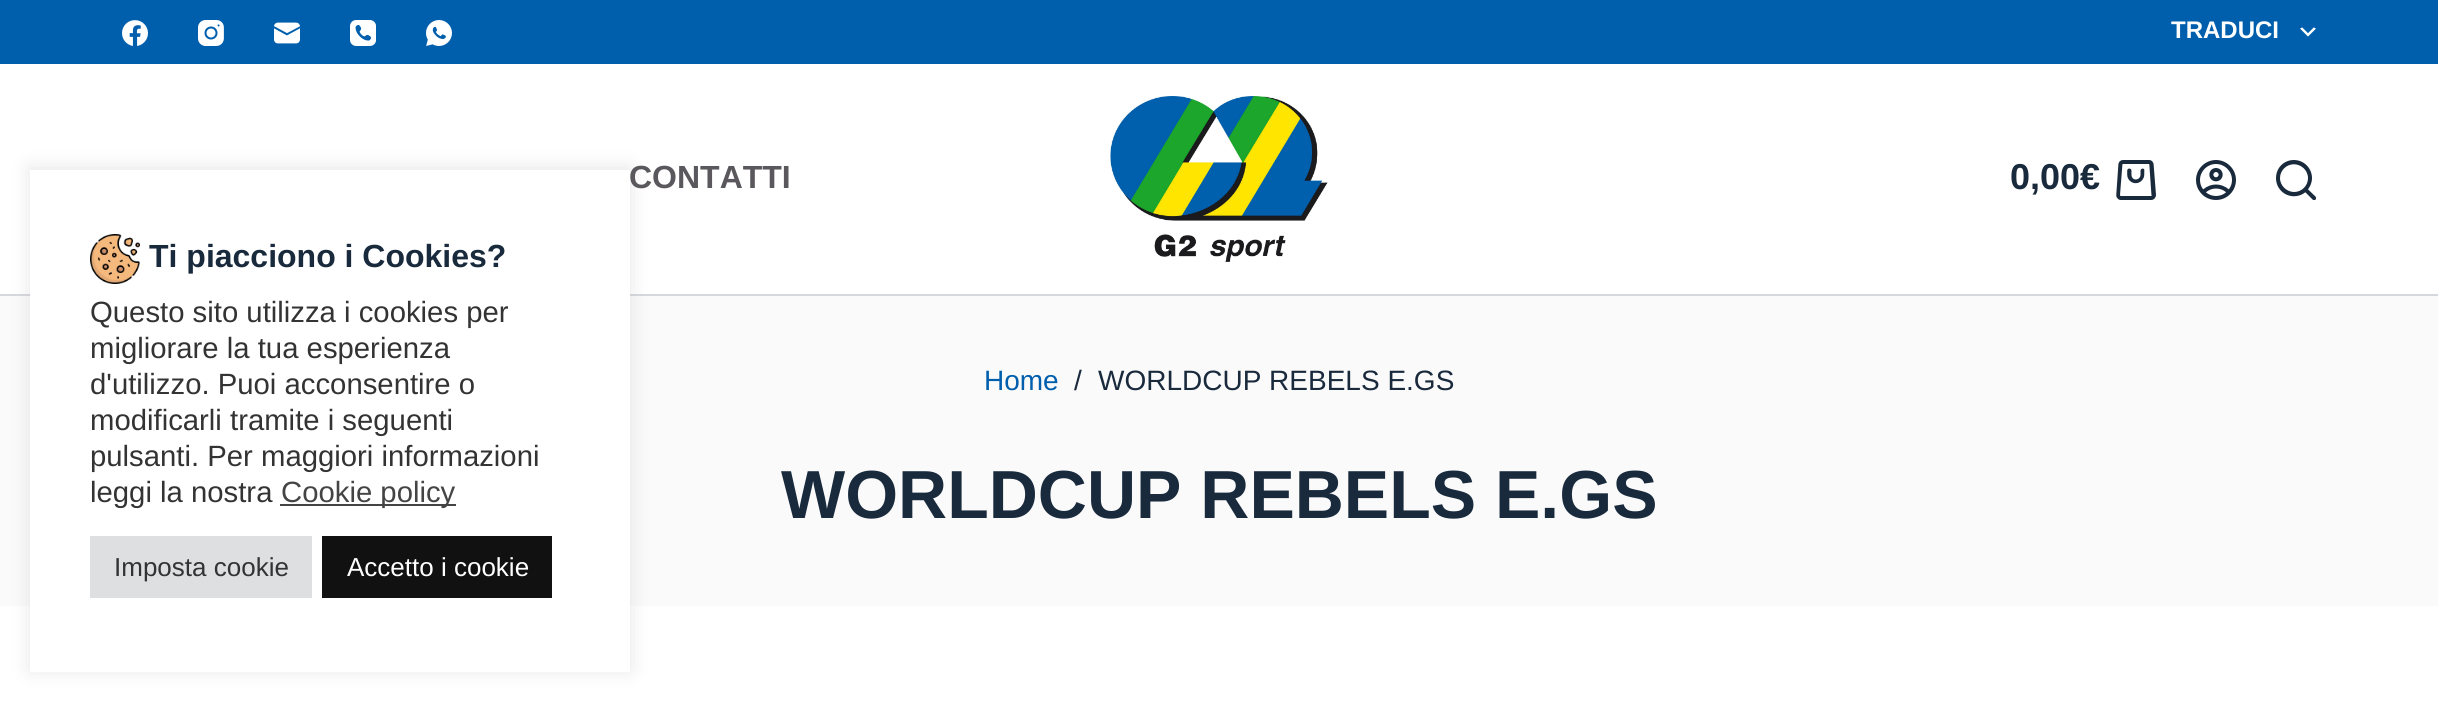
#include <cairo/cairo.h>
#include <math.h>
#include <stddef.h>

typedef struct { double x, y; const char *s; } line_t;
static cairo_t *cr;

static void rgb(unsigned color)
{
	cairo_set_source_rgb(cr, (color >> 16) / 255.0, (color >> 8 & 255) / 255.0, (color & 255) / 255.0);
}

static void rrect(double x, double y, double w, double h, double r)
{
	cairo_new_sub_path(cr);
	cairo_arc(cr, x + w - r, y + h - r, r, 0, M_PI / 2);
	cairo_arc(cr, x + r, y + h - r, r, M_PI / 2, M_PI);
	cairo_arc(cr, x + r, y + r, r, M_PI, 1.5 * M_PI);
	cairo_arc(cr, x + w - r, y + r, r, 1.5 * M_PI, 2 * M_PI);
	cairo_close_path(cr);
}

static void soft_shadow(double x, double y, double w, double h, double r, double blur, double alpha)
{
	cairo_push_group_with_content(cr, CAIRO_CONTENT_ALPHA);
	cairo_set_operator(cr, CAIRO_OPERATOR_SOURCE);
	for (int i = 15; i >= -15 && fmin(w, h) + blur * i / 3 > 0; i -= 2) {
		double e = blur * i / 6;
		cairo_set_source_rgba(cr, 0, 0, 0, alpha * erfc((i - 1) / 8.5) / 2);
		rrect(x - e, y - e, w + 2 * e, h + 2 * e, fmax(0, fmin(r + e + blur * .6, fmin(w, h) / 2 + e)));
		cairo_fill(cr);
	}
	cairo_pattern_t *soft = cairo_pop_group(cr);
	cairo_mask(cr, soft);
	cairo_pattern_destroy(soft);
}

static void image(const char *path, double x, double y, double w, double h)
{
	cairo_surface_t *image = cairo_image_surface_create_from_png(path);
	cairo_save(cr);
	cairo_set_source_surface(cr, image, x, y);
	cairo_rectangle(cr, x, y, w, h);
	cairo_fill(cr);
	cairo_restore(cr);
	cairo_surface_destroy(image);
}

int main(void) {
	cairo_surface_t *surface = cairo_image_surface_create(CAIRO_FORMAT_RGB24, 2438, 702);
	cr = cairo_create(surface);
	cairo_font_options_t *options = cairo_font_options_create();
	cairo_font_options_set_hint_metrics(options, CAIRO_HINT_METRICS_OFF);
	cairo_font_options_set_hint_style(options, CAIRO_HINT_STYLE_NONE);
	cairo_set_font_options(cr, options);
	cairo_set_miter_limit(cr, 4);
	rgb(0xffffff);
	cairo_paint(cr);
	rgb(0xd5d8dc);
	cairo_rectangle(cr, 0, 294, 2438, 2);
	cairo_fill(cr);
	rgb(0xfafafa);
	cairo_rectangle(cr, 0, 296, 2438, 310);
	cairo_fill(cr);
	rgb(0xacabab);
	soft_shadow(30, 168, 600, 502, 0, 10, 0.3);
	rgb(0x005fad);
	cairo_rectangle(cr, 0, 0, 2438, 64);
	cairo_fill(cr);
	image("img/2.png", 122, 20, 26, 26);
	image("img/3.png", 198, 20, 26, 26);
	image("img/4.png", 274, 22, 26, 22);
	image("img/5.png", 350, 20, 26, 26);
	image("img/6.png", 426, 20, 26, 26);
	image("img/7.png", 2300, 27, 16, 10);
	image("img/8.png", 1110, 96, 218, 166);
	image("img/9.png", 2116, 160, 40, 40);
	image("img/10.png", 2196, 160, 40, 40);
	image("img/11.png", 2276, 160, 40, 40);
	cairo_select_font_face(cr, "Liberation Sans", CAIRO_FONT_SLANT_NORMAL, CAIRO_FONT_WEIGHT_BOLD);
	cairo_set_font_size(cr, 24);
	rgb(0xffffff);
	cairo_move_to(cr, 2171, 38);
	cairo_show_text(cr, "TRADUCI");
	cairo_set_font_size(cr, 32);
	rgb(0x5a585d);
	cairo_move_to(cr, 629, 188);
	cairo_show_text(cr, "CONTATTI");
	rgb(0xffffff);
	cairo_rectangle(cr, 30, 170, 600, 502);
	cairo_fill(cr);
	rgb(0x111111);
	cairo_rectangle(cr, 322, 536, 230, 62);
	cairo_fill(cr);
	cairo_select_font_face(cr, "Liberation Sans", CAIRO_FONT_SLANT_NORMAL, CAIRO_FONT_WEIGHT_NORMAL);
	cairo_set_font_size(cr, 26);
	rgb(0xffffff);
	cairo_move_to(cr, 347, 576);
	cairo_show_text(cr, "Accetto i cookie");
	rgb(0xdedfe0);
	cairo_rectangle(cr, 90, 536, 222, 62);
	cairo_fill(cr);
	rgb(0x333333);
	cairo_move_to(cr, 114, 576);
	cairo_show_text(cr, "Imposta cookie");
	rgb(0x444444);
	cairo_rectangle(cr, 280, 504, 176, 2);
	cairo_fill(cr);
	cairo_set_font_size(cr, 29.3);
	cairo_move_to(cr, 281, 502);
	cairo_show_text(cr, "Cookie policy");
	rgb(0x333333);
	{
		static const line_t items[] = {
			{90, 502, "leggi la nostra"},
			{90, 466, "pulsanti. Per maggiori informazioni"},
			{90, 430, "modificarli tramite i seguenti"},
			{90, 394, "d'utilizzo. Puoi acconsentire o"},
			{90, 358, "migliorare la tua esperienza"},
			{90, 322, "Questo sito utilizza i cookies per"},
		};
		for (size_t i = 0; i < sizeof items / sizeof *items; i++) {
			cairo_move_to(cr, items[i].x, items[i].y);
			cairo_show_text(cr, items[i].s);
		}
	}
	cairo_select_font_face(cr, "Liberation Sans", CAIRO_FONT_SLANT_NORMAL, CAIRO_FONT_WEIGHT_BOLD);
	cairo_set_font_size(cr, 32);
	rgb(0x192a3d);
	cairo_move_to(cr, 149, 267);
	cairo_show_text(cr, "Ti piacciono i Cookies?");
	image("img/1.png", 90, 234, 50, 50);
	cairo_set_font_size(cr, 36);
	cairo_move_to(cr, 2010, 189);
	cairo_show_text(cr, "0,00€");
	cairo_select_font_face(cr, "Liberation Sans", CAIRO_FONT_SLANT_NORMAL, CAIRO_FONT_WEIGHT_NORMAL);
	cairo_set_font_size(cr, 28);
	rgb(0x005fad);
	cairo_move_to(cr, 984, 390);
	cairo_show_text(cr, "Home");
	rgb(0x192a3d);
	cairo_move_to(cr, 1074, 390);
	cairo_show_text(cr, "/");
	cairo_move_to(cr, 1098, 390);
	cairo_show_text(cr, "WORLDCUP REBELS E.GS");
	cairo_select_font_face(cr, "Liberation Sans", CAIRO_FONT_SLANT_NORMAL, CAIRO_FONT_WEIGHT_BOLD);
	cairo_set_font_size(cr, 68);
	cairo_move_to(cr, 781, 518);
	cairo_show_text(cr, "WORLDCUP REBELS E.GS");
	cairo_surface_write_to_png(surface, "page.png");
	cairo_font_options_destroy(options);
	cairo_destroy(cr);
	cairo_surface_destroy(surface);
	return 0;
}
